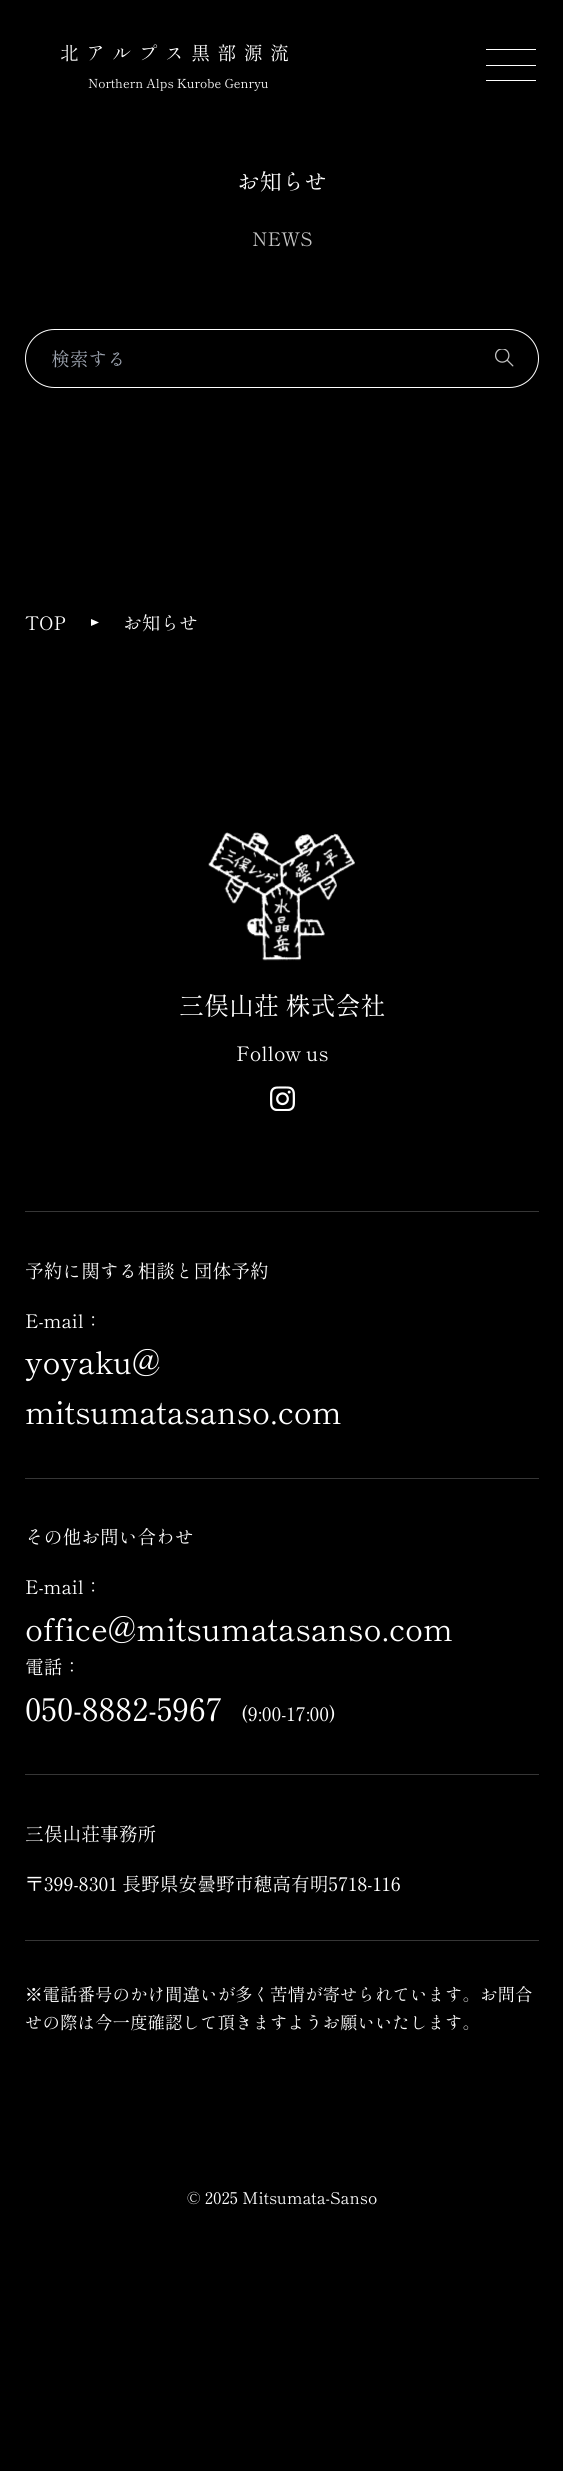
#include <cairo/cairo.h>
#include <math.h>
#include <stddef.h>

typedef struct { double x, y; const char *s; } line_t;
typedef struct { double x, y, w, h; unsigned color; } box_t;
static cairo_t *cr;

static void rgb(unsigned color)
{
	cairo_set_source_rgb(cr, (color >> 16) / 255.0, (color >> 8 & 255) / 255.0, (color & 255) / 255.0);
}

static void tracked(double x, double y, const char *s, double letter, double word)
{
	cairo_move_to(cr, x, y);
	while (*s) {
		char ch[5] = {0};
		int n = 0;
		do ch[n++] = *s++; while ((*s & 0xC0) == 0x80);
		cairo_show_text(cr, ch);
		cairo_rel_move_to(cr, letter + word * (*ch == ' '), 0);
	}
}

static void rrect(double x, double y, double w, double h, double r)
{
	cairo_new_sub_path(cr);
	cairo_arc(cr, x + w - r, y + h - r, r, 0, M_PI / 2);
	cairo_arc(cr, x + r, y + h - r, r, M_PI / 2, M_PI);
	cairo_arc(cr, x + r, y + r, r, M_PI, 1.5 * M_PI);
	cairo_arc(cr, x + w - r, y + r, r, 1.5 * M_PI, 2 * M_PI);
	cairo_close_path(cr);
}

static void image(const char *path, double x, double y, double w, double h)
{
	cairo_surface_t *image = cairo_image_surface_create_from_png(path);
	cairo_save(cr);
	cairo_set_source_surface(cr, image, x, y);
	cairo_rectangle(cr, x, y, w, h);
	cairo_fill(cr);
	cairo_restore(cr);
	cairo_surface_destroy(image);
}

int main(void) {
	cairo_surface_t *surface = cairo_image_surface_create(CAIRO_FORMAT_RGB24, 563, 2471);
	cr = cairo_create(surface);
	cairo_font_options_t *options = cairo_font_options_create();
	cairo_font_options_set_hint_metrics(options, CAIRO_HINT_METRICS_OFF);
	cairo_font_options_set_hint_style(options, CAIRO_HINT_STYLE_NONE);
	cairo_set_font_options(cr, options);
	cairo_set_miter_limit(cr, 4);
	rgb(0x000000);
	cairo_paint(cr);
	{
		static const box_t items[] = {
			{486, 49, 50, 1, 0xffffff},
			{486, 65, 50, 1, 0xffffff},
			{486, 80, 50, 1, 0xffffff},
		};
		for (size_t i = 0; i < sizeof items / sizeof *items; i++) {
			rgb(items[i].color);
			cairo_rectangle(cr, items[i].x, items[i].y, items[i].w, items[i].h);
			cairo_fill(cr);
		}
	}
	rrect(25.5, 329.5, 513, 58, 29);
	cairo_set_line_width(cr, 1);
	cairo_stroke(cr);
	image("img/1.png", 495, 349, 19, 18);
	cairo_new_path(cr);
	cairo_move_to(cr, 91, 626);
	cairo_line_to(cr, 91, 619);
	cairo_line_to(cr, 99, 622.5);
	cairo_close_path(cr);
	cairo_fill(cr);
	image("img/2.png", 208, 832, 147, 129);
	image("img/3.png", 270, 1086, 25, 25);
	{
		static const box_t items[] = {
			{25, 1211, 514, 1, 0x363636},
			{25, 1478, 514, 1, 0x363636},
			{25, 1774, 514, 1, 0x363636},
			{25, 1940, 514, 1, 0x363636},
		};
		for (size_t i = 0; i < sizeof items / sizeof *items; i++) {
			rgb(items[i].color);
			cairo_rectangle(cr, items[i].x, items[i].y, items[i].w, items[i].h);
			cairo_fill(cr);
		}
	}
	cairo_select_font_face(cr, "Shippori Mincho", CAIRO_FONT_SLANT_NORMAL, CAIRO_FONT_WEIGHT_NORMAL);
	cairo_set_font_size(cr, 18.75);
	rgb(0xffffff);
	tracked(60, 60, "北アルプス黒部源流", 7.5, 0);
	cairo_set_font_size(cr, 12.5);
	cairo_move_to(cr, 88, 88);
	cairo_show_text(cr, "Northern Alps Kurobe Genryu");
	cairo_set_font_size(cr, 22.5);
	cairo_move_to(cr, 237, 190);
	cairo_show_text(cr, "お知らせ");
	cairo_set_font_size(cr, 18.75);
	rgb(0xc4c4c4);
	cairo_move_to(cr, 252, 246);
	cairo_show_text(cr, "NEWS");
	rgb(0x9ca3af);
	cairo_move_to(cr, 51, 366);
	cairo_show_text(cr, "検索する");
	rgb(0xffffff);
	cairo_move_to(cr, 25, 630);
	cairo_show_text(cr, "TOP");
	cairo_move_to(cr, 123, 630);
	cairo_show_text(cr, "お知らせ");
	cairo_set_font_size(cr, 25);
	cairo_move_to(cr, 179, 1015);
	cairo_show_text(cr, "三俣山荘 株式会社");
	cairo_set_font_size(cr, 20);
	cairo_move_to(cr, 236, 1061);
	cairo_show_text(cr, "Follow us");
	cairo_set_font_size(cr, 18.75);
	cairo_move_to(cr, 25, 1278);
	cairo_show_text(cr, "予約に関する相談と団体予約");
	cairo_move_to(cr, 25, 1328);
	cairo_show_text(cr, "E-mail：");
	cairo_set_font_size(cr, 31.25);
	cairo_move_to(cr, 25, 1374);
	cairo_show_text(cr, "yoyaku@");
	cairo_move_to(cr, 25, 1424);
	cairo_show_text(cr, "mitsumatasanso.com");
	cairo_set_font_size(cr, 18.75);
	cairo_move_to(cr, 25, 1544);
	cairo_show_text(cr, "その他お問い合わせ");
	cairo_move_to(cr, 25, 1594);
	cairo_show_text(cr, "E-mail：");
	cairo_set_font_size(cr, 31.25);
	cairo_move_to(cr, 25, 1641);
	cairo_show_text(cr, "office@mitsumatasanso.com");
	cairo_set_font_size(cr, 18.75);
	cairo_move_to(cr, 25, 1674);
	cairo_show_text(cr, "電話：");
	cairo_set_font_size(cr, 31.25);
	cairo_move_to(cr, 25, 1721);
	cairo_show_text(cr, "050-8882-5967");
	cairo_set_font_size(cr, 18.75);
	{
		static const line_t items[] = {
			{241, 1721, "(9:00-17:00)"},
			{25, 1841, "三俣山荘事務所"},
			{25, 1891, "〒399-8301 長野県安曇野市穂高有明5718-116"},
		};
		for (size_t i = 0; i < sizeof items / sizeof *items; i++) {
			cairo_move_to(cr, items[i].x, items[i].y);
			cairo_show_text(cr, items[i].s);
		}
	}
	cairo_set_font_size(cr, 17.5);
	cairo_move_to(cr, 25, 2001);
	cairo_show_text(cr, "※電話番号のかけ間違いが多く苦情が寄せられています。お問合");
	cairo_move_to(cr, 25, 2029);
	cairo_show_text(cr, "せの際は今一度確認して頂きますようお願いいたします。");
	cairo_set_font_size(cr, 16.25);
	cairo_move_to(cr, 187, 2204);
	cairo_show_text(cr, "© 2025 Mitsumata-Sanso");
	cairo_surface_write_to_png(surface, "page.png");
	cairo_font_options_destroy(options);
	cairo_destroy(cr);
	cairo_surface_destroy(surface);
	return 0;
}
